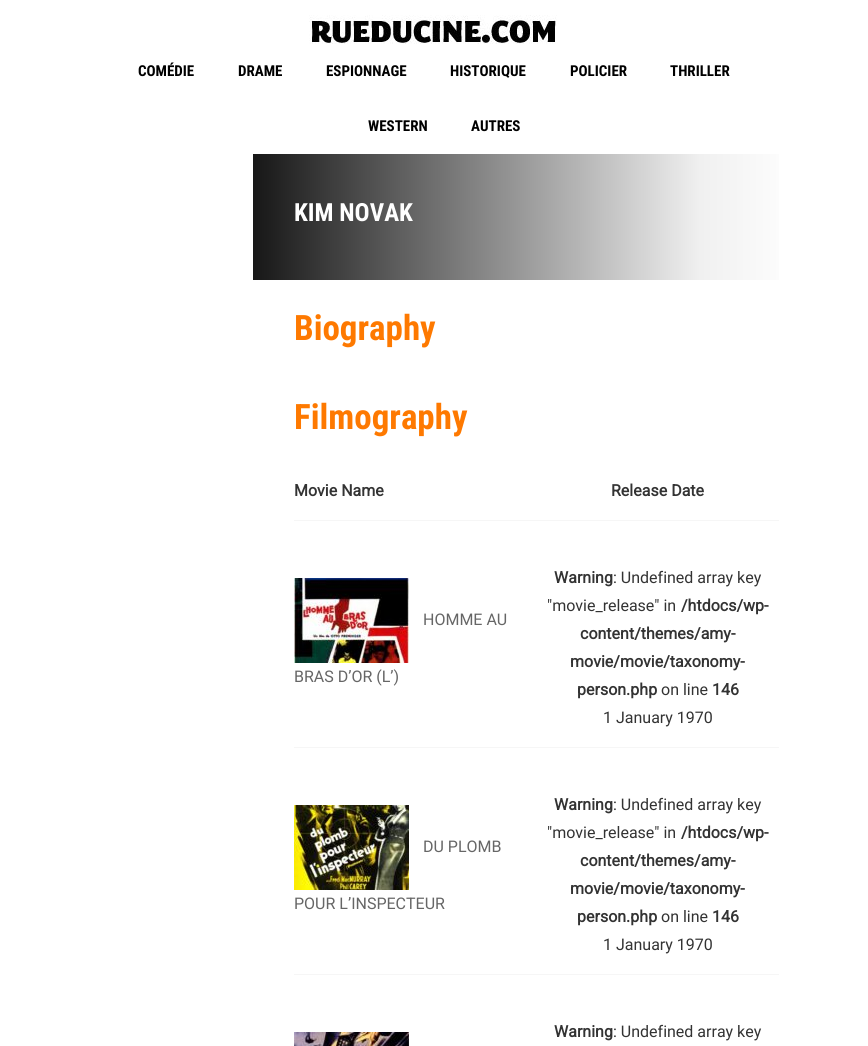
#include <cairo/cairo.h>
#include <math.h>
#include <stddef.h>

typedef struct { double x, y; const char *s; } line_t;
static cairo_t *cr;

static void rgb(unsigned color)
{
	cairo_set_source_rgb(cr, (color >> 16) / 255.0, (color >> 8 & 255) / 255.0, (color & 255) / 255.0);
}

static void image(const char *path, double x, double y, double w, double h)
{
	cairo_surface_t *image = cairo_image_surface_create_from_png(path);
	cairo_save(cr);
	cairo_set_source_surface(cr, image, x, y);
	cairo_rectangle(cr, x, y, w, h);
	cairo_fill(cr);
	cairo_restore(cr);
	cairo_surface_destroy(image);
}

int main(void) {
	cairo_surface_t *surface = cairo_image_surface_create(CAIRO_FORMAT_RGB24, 868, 1046);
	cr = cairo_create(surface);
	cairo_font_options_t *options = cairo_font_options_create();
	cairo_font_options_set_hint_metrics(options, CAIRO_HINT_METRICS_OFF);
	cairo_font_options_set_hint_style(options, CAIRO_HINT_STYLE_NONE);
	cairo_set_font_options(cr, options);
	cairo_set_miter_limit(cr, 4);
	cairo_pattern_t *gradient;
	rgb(0xffffff);
	cairo_paint(cr);
	image("img/1.png", 309, 15, 248, 29);
	gradient = cairo_pattern_create_linear(253, 217, 779, 217);
	cairo_pattern_add_color_stop_rgba(gradient, 0, 0.09, 0.09, 0.09, 1);
	cairo_pattern_add_color_stop_rgba(gradient, 0.85, 0.941, 0.941, 0.941, 1);
	cairo_pattern_add_color_stop_rgba(gradient, 1, 0.988, 0.988, 0.988, 1);
	cairo_set_source(cr, gradient);
	cairo_pattern_destroy(gradient);
	cairo_rectangle(cr, 253, 154, 526, 126);
	cairo_fill(cr);
	rgb(0xf6f6f6);
	cairo_rectangle(cr, 294, 520, 485, 1);
	cairo_fill(cr);
	cairo_rectangle(cr, 294, 747, 485, 1);
	cairo_fill(cr);
	image("img/2.png", 294, 578, 115, 85);
	cairo_rectangle(cr, 294, 974, 485, 1);
	cairo_fill(cr);
	image("img/3.png", 294, 805, 115, 85);
	image("img/4.png", 294, 1032, 115, 14);
	cairo_select_font_face(cr, "Roboto Condensed", CAIRO_FONT_SLANT_NORMAL, CAIRO_FONT_WEIGHT_BOLD);
	cairo_set_font_size(cr, 15);
	rgb(0x000000);
	{
		static const line_t items[] = {
			{138, 76, "COMÉDIE"},
			{238, 76, "DRAME"},
			{326, 76, "ESPIONNAGE"},
			{450, 76, "HISTORIQUE"},
			{570, 76, "POLICIER"},
			{670, 76, "THRILLER"},
			{368, 131, "WESTERN"},
			{471, 131, "AUTRES"},
		};
		for (size_t i = 0; i < sizeof items / sizeof *items; i++) {
			cairo_move_to(cr, items[i].x, items[i].y);
			cairo_show_text(cr, items[i].s);
		}
	}
	cairo_set_font_size(cr, 25);
	rgb(0xffffff);
	cairo_move_to(cr, 294, 221);
	cairo_show_text(cr, "KIM NOVAK");
	cairo_set_font_size(cr, 35);
	rgb(0xfe7900);
	cairo_move_to(cr, 294, 340);
	cairo_show_text(cr, "Biography");
	cairo_move_to(cr, 294, 429);
	cairo_show_text(cr, "Filmography");
	cairo_select_font_face(cr, "Roboto", CAIRO_FONT_SLANT_NORMAL, CAIRO_FONT_WEIGHT_BOLD);
	cairo_set_font_size(cr, 16);
	rgb(0x333333);
	cairo_move_to(cr, 294, 496);
	cairo_show_text(cr, "Movie Name");
	cairo_move_to(cr, 611, 496);
	cairo_show_text(cr, "Release Date");
	cairo_select_font_face(cr, "Roboto", CAIRO_FONT_SLANT_NORMAL, CAIRO_FONT_WEIGHT_NORMAL);
	rgb(0x666666);
	cairo_move_to(cr, 423, 625);
	cairo_show_text(cr, "HOMME AU");
	cairo_move_to(cr, 294, 682);
	cairo_show_text(cr, "BRAS D’OR (L’)");
	cairo_select_font_face(cr, "Roboto", CAIRO_FONT_SLANT_NORMAL, CAIRO_FONT_WEIGHT_BOLD);
	rgb(0x333333);
	cairo_move_to(cr, 554, 583);
	cairo_show_text(cr, "Warning");
	cairo_select_font_face(cr, "Roboto", CAIRO_FONT_SLANT_NORMAL, CAIRO_FONT_WEIGHT_NORMAL);
	cairo_move_to(cr, 613, 583);
	cairo_show_text(cr, ": Undefined array key");
	cairo_move_to(cr, 547, 611);
	cairo_show_text(cr, "\"movie_release\" in");
	cairo_select_font_face(cr, "Roboto", CAIRO_FONT_SLANT_NORMAL, CAIRO_FONT_WEIGHT_BOLD);
	{
		static const line_t items[] = {
			{681, 611, "/htdocs/wp-"},
			{580, 639, "content/themes/amy-"},
			{570, 667, "movie/movie/taxonomy-"},
			{577, 695, "person.php"},
		};
		for (size_t i = 0; i < sizeof items / sizeof *items; i++) {
			cairo_move_to(cr, items[i].x, items[i].y);
			cairo_show_text(cr, items[i].s);
		}
	}
	cairo_select_font_face(cr, "Roboto", CAIRO_FONT_SLANT_NORMAL, CAIRO_FONT_WEIGHT_NORMAL);
	cairo_move_to(cr, 661, 695);
	cairo_show_text(cr, "on line");
	cairo_select_font_face(cr, "Roboto", CAIRO_FONT_SLANT_NORMAL, CAIRO_FONT_WEIGHT_BOLD);
	cairo_move_to(cr, 712, 695);
	cairo_show_text(cr, "146");
	cairo_select_font_face(cr, "Roboto", CAIRO_FONT_SLANT_NORMAL, CAIRO_FONT_WEIGHT_NORMAL);
	cairo_move_to(cr, 603, 723);
	cairo_show_text(cr, "1 January 1970");
	rgb(0x666666);
	cairo_move_to(cr, 423, 852);
	cairo_show_text(cr, "DU PLOMB");
	cairo_move_to(cr, 294, 909);
	cairo_show_text(cr, "POUR L’INSPECTEUR");
	cairo_select_font_face(cr, "Roboto", CAIRO_FONT_SLANT_NORMAL, CAIRO_FONT_WEIGHT_BOLD);
	rgb(0x333333);
	cairo_move_to(cr, 554, 810);
	cairo_show_text(cr, "Warning");
	cairo_select_font_face(cr, "Roboto", CAIRO_FONT_SLANT_NORMAL, CAIRO_FONT_WEIGHT_NORMAL);
	cairo_move_to(cr, 613, 810);
	cairo_show_text(cr, ": Undefined array key");
	cairo_move_to(cr, 547, 838);
	cairo_show_text(cr, "\"movie_release\" in");
	cairo_select_font_face(cr, "Roboto", CAIRO_FONT_SLANT_NORMAL, CAIRO_FONT_WEIGHT_BOLD);
	{
		static const line_t items[] = {
			{681, 838, "/htdocs/wp-"},
			{580, 866, "content/themes/amy-"},
			{570, 894, "movie/movie/taxonomy-"},
			{577, 922, "person.php"},
		};
		for (size_t i = 0; i < sizeof items / sizeof *items; i++) {
			cairo_move_to(cr, items[i].x, items[i].y);
			cairo_show_text(cr, items[i].s);
		}
	}
	cairo_select_font_face(cr, "Roboto", CAIRO_FONT_SLANT_NORMAL, CAIRO_FONT_WEIGHT_NORMAL);
	cairo_move_to(cr, 661, 922);
	cairo_show_text(cr, "on line");
	cairo_select_font_face(cr, "Roboto", CAIRO_FONT_SLANT_NORMAL, CAIRO_FONT_WEIGHT_BOLD);
	cairo_move_to(cr, 712, 922);
	cairo_show_text(cr, "146");
	cairo_select_font_face(cr, "Roboto", CAIRO_FONT_SLANT_NORMAL, CAIRO_FONT_WEIGHT_NORMAL);
	cairo_move_to(cr, 603, 950);
	cairo_show_text(cr, "1 January 1970");
	cairo_select_font_face(cr, "Roboto", CAIRO_FONT_SLANT_NORMAL, CAIRO_FONT_WEIGHT_BOLD);
	cairo_move_to(cr, 554, 1037);
	cairo_show_text(cr, "Warning");
	cairo_select_font_face(cr, "Roboto", CAIRO_FONT_SLANT_NORMAL, CAIRO_FONT_WEIGHT_NORMAL);
	cairo_move_to(cr, 613, 1037);
	cairo_show_text(cr, ": Undefined array key");
	cairo_surface_write_to_png(surface, "page.png");
	cairo_font_options_destroy(options);
	cairo_destroy(cr);
	cairo_surface_destroy(surface);
	return 0;
}
